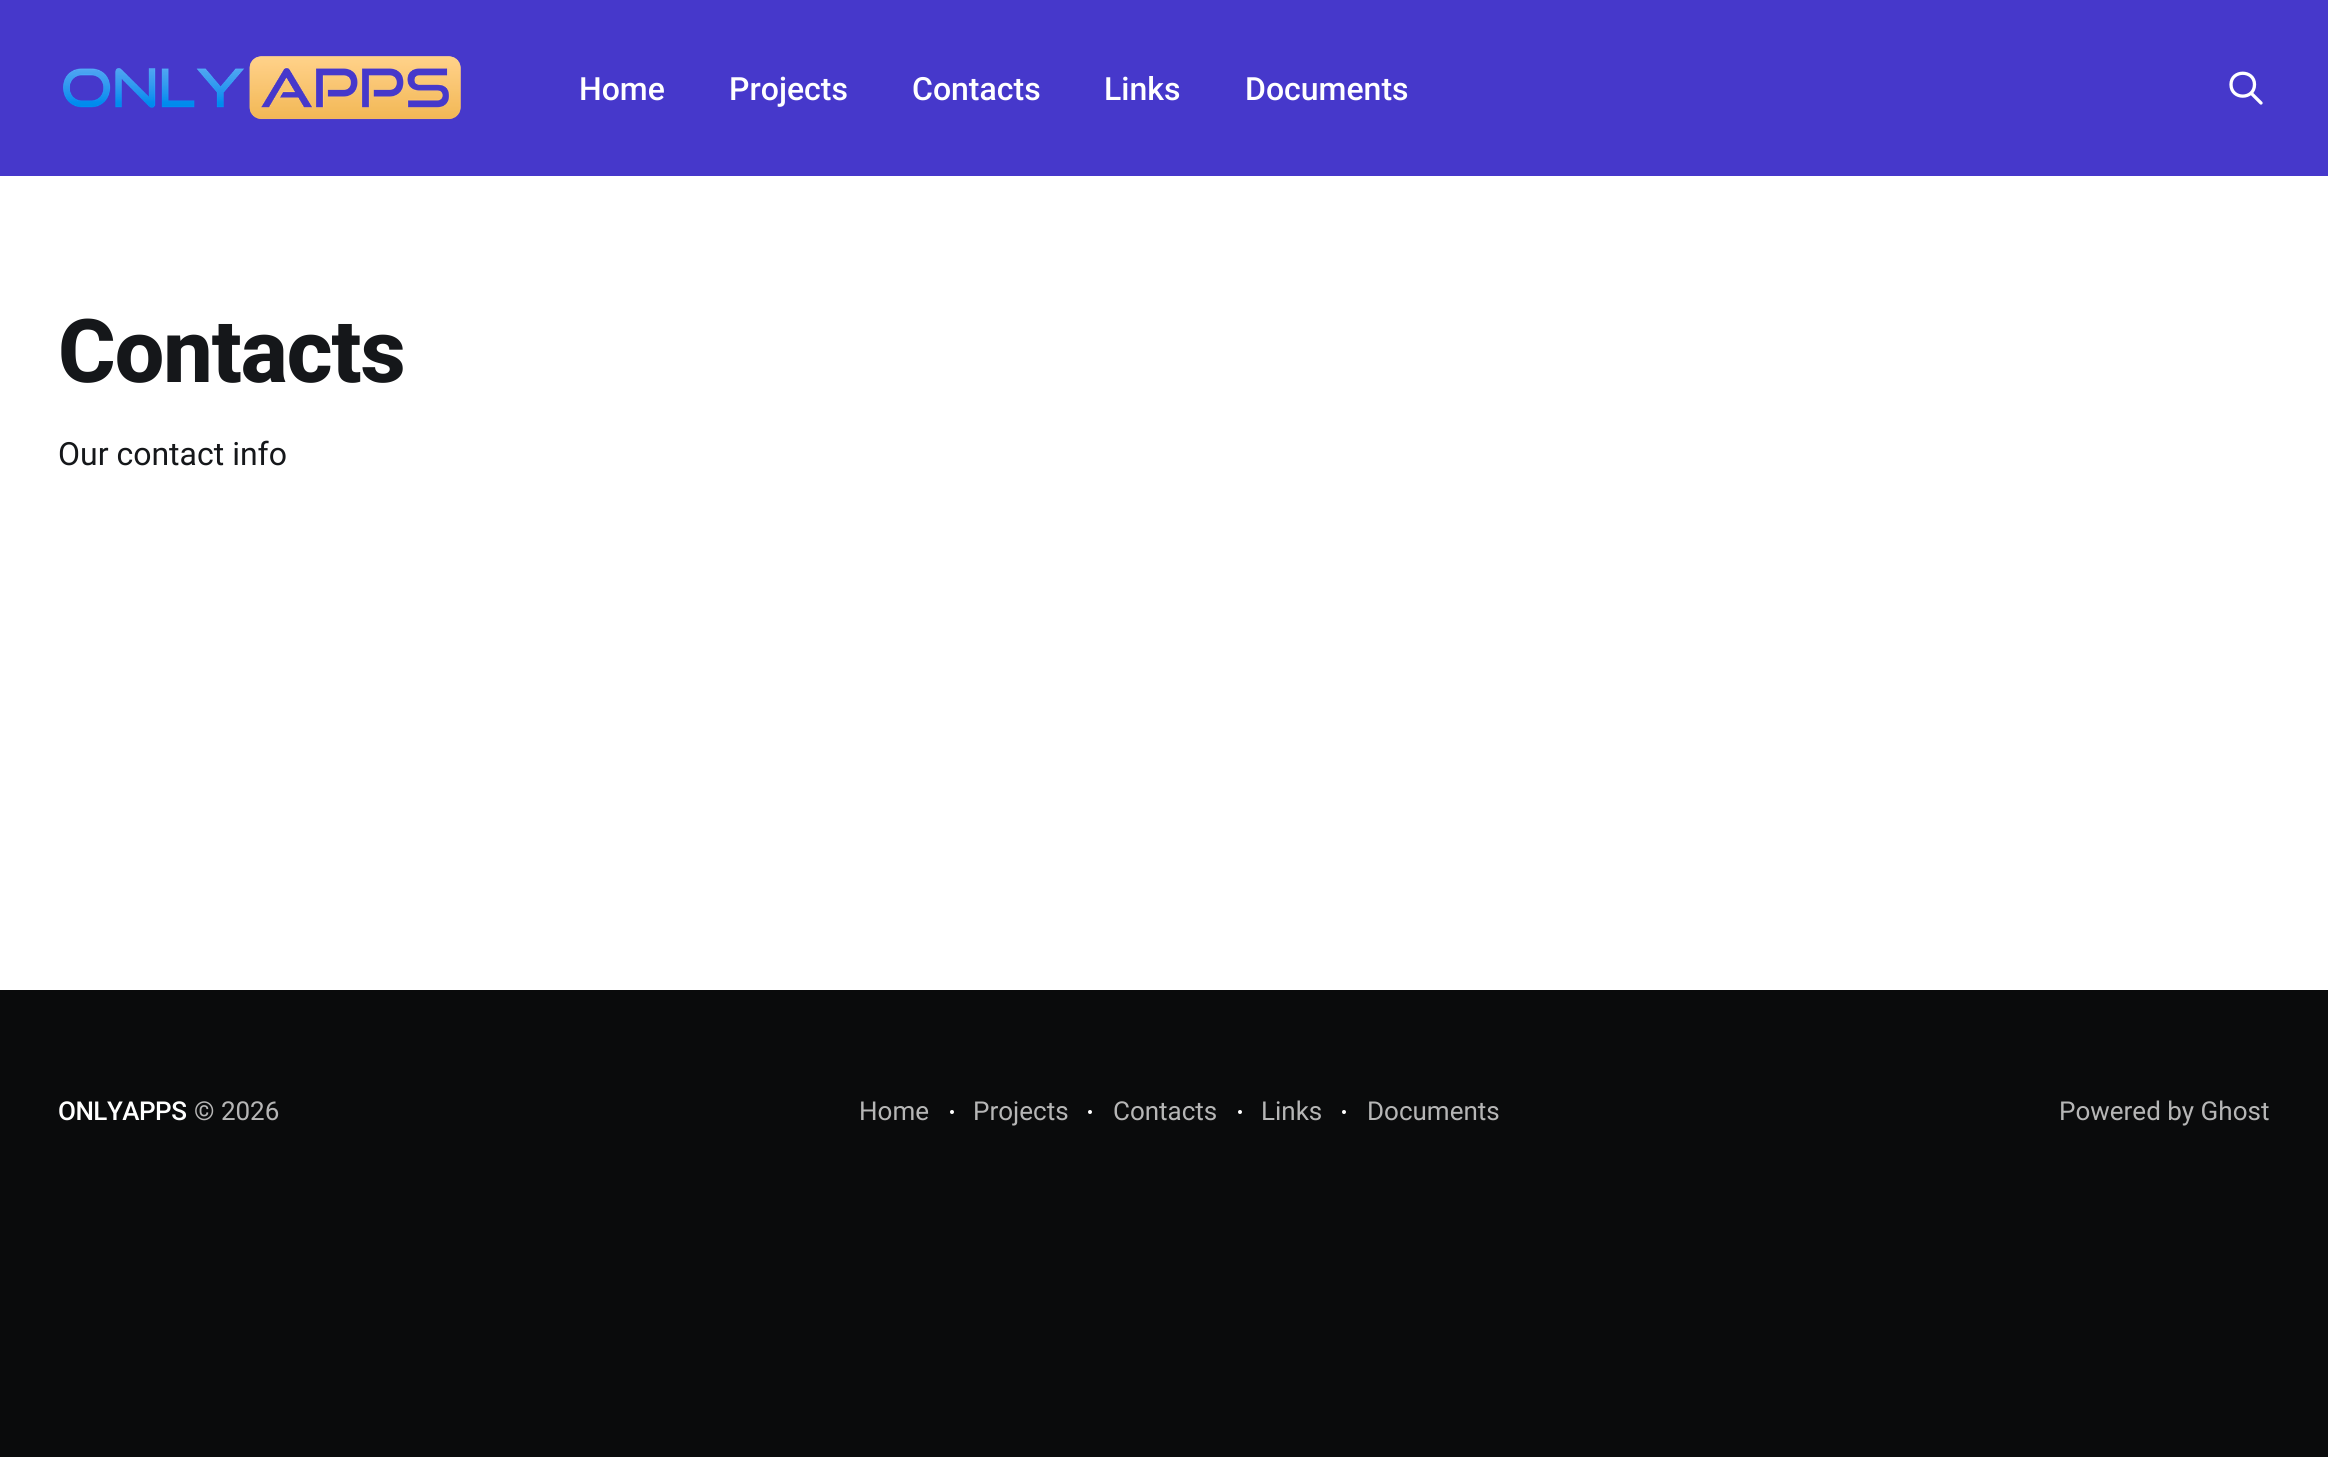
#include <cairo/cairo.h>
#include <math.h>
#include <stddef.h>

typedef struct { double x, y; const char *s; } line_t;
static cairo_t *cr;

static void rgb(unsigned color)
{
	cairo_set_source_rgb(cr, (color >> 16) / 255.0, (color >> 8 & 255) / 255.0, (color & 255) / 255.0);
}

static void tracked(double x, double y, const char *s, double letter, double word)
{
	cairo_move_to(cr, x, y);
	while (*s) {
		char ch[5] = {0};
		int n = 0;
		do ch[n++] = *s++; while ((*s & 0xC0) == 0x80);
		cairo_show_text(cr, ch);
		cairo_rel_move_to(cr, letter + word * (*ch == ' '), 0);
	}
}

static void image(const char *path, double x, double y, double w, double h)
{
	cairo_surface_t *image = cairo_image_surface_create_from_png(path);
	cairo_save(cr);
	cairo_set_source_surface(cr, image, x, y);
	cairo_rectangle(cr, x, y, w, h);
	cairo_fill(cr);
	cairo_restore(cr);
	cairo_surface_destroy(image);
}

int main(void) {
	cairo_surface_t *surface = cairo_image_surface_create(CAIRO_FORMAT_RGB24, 2328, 1457);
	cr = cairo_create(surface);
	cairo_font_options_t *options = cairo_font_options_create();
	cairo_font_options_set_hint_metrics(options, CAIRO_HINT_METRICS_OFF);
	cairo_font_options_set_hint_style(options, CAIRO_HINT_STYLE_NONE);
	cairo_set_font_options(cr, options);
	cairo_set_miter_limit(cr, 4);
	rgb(0xffffff);
	cairo_paint(cr);
	rgb(0x4638cb);
	cairo_rectangle(cr, 0, 0, 2328, 176);
	cairo_fill(cr);
	image("img/1.png", 63, 56, 398, 64);
	cairo_new_path(cr);
	cairo_move_to(cr, 2261, 103);
	cairo_line_to(cr, 2251, 93);
	cairo_move_to(cr, 2254.5, 84.5);
	cairo_curve_to(cr, 2254.5, 100, 2231, 100, 2231, 84.5);
	cairo_curve_to(cr, 2231, 69.5, 2254.5, 69.5, 2254.5, 84.5);
	cairo_close_path(cr);
	rgb(0xffffff);
	cairo_set_line_width(cr, 3.3);
	cairo_set_line_cap(cr, CAIRO_LINE_CAP_ROUND);
	cairo_set_line_join(cr, CAIRO_LINE_JOIN_ROUND);
	cairo_stroke(cr);
	rgb(0x0a0b0c);
	cairo_rectangle(cr, 0, 990, 2328, 467);
	cairo_fill(cr);
	rgb(0xffffff);
	cairo_arc(cr, 952, 1112, 2, 0, 2 * M_PI);
	cairo_fill(cr);
	cairo_arc(cr, 1090, 1112, 2, 0, 2 * M_PI);
	cairo_fill(cr);
	cairo_arc(cr, 1240, 1112, 2, 0, 2 * M_PI);
	cairo_fill(cr);
	cairo_arc(cr, 1344, 1112, 2, 0, 2 * M_PI);
	cairo_fill(cr);
	cairo_select_font_face(cr, "Roboto Medium", CAIRO_FONT_SLANT_NORMAL, CAIRO_FONT_WEIGHT_NORMAL);
	cairo_set_font_size(cr, 32);
	{
		static const line_t items[] = {
			{579, 100, "Home"},
			{729, 100, "Projects"},
			{912, 100, "Contacts"},
			{1104, 100, "Links"},
			{1245, 100, "Documents"},
		};
		for (size_t i = 0; i < sizeof items / sizeof *items; i++) {
			cairo_move_to(cr, items[i].x, items[i].y);
			cairo_show_text(cr, items[i].s);
		}
	}
	cairo_select_font_face(cr, "Roboto ExtraBold", CAIRO_FONT_SLANT_NORMAL, CAIRO_FONT_WEIGHT_NORMAL);
	cairo_set_font_size(cr, 88);
	rgb(0x15171a);
	tracked(58, 382, "Contacts", -1, 0);
	cairo_select_font_face(cr, "Roboto", CAIRO_FONT_SLANT_NORMAL, CAIRO_FONT_WEIGHT_NORMAL);
	cairo_set_font_size(cr, 32);
	cairo_move_to(cr, 58, 465);
	cairo_show_text(cr, "Our contact info");
	cairo_select_font_face(cr, "Roboto Medium", CAIRO_FONT_SLANT_NORMAL, CAIRO_FONT_WEIGHT_NORMAL);
	cairo_set_font_size(cr, 26);
	rgb(0xffffff);
	tracked(58, 1120, "ONLYAPPS", -0.5, 0);
	cairo_select_font_face(cr, "Roboto", CAIRO_FONT_SLANT_NORMAL, CAIRO_FONT_WEIGHT_NORMAL);
	rgb(0xb6b6b6);
	{
		static const line_t items[] = {
			{194, 1120, "© 2026"},
			{859, 1120, "Home"},
			{973, 1120, "Projects"},
			{1113, 1120, "Contacts"},
			{1261, 1120, "Links"},
			{1367, 1120, "Documents"},
			{2059, 1120, "Powered by Ghost"},
		};
		for (size_t i = 0; i < sizeof items / sizeof *items; i++) {
			cairo_move_to(cr, items[i].x, items[i].y);
			cairo_show_text(cr, items[i].s);
		}
	}
	cairo_surface_write_to_png(surface, "page.png");
	cairo_font_options_destroy(options);
	cairo_destroy(cr);
	cairo_surface_destroy(surface);
	return 0;
}
